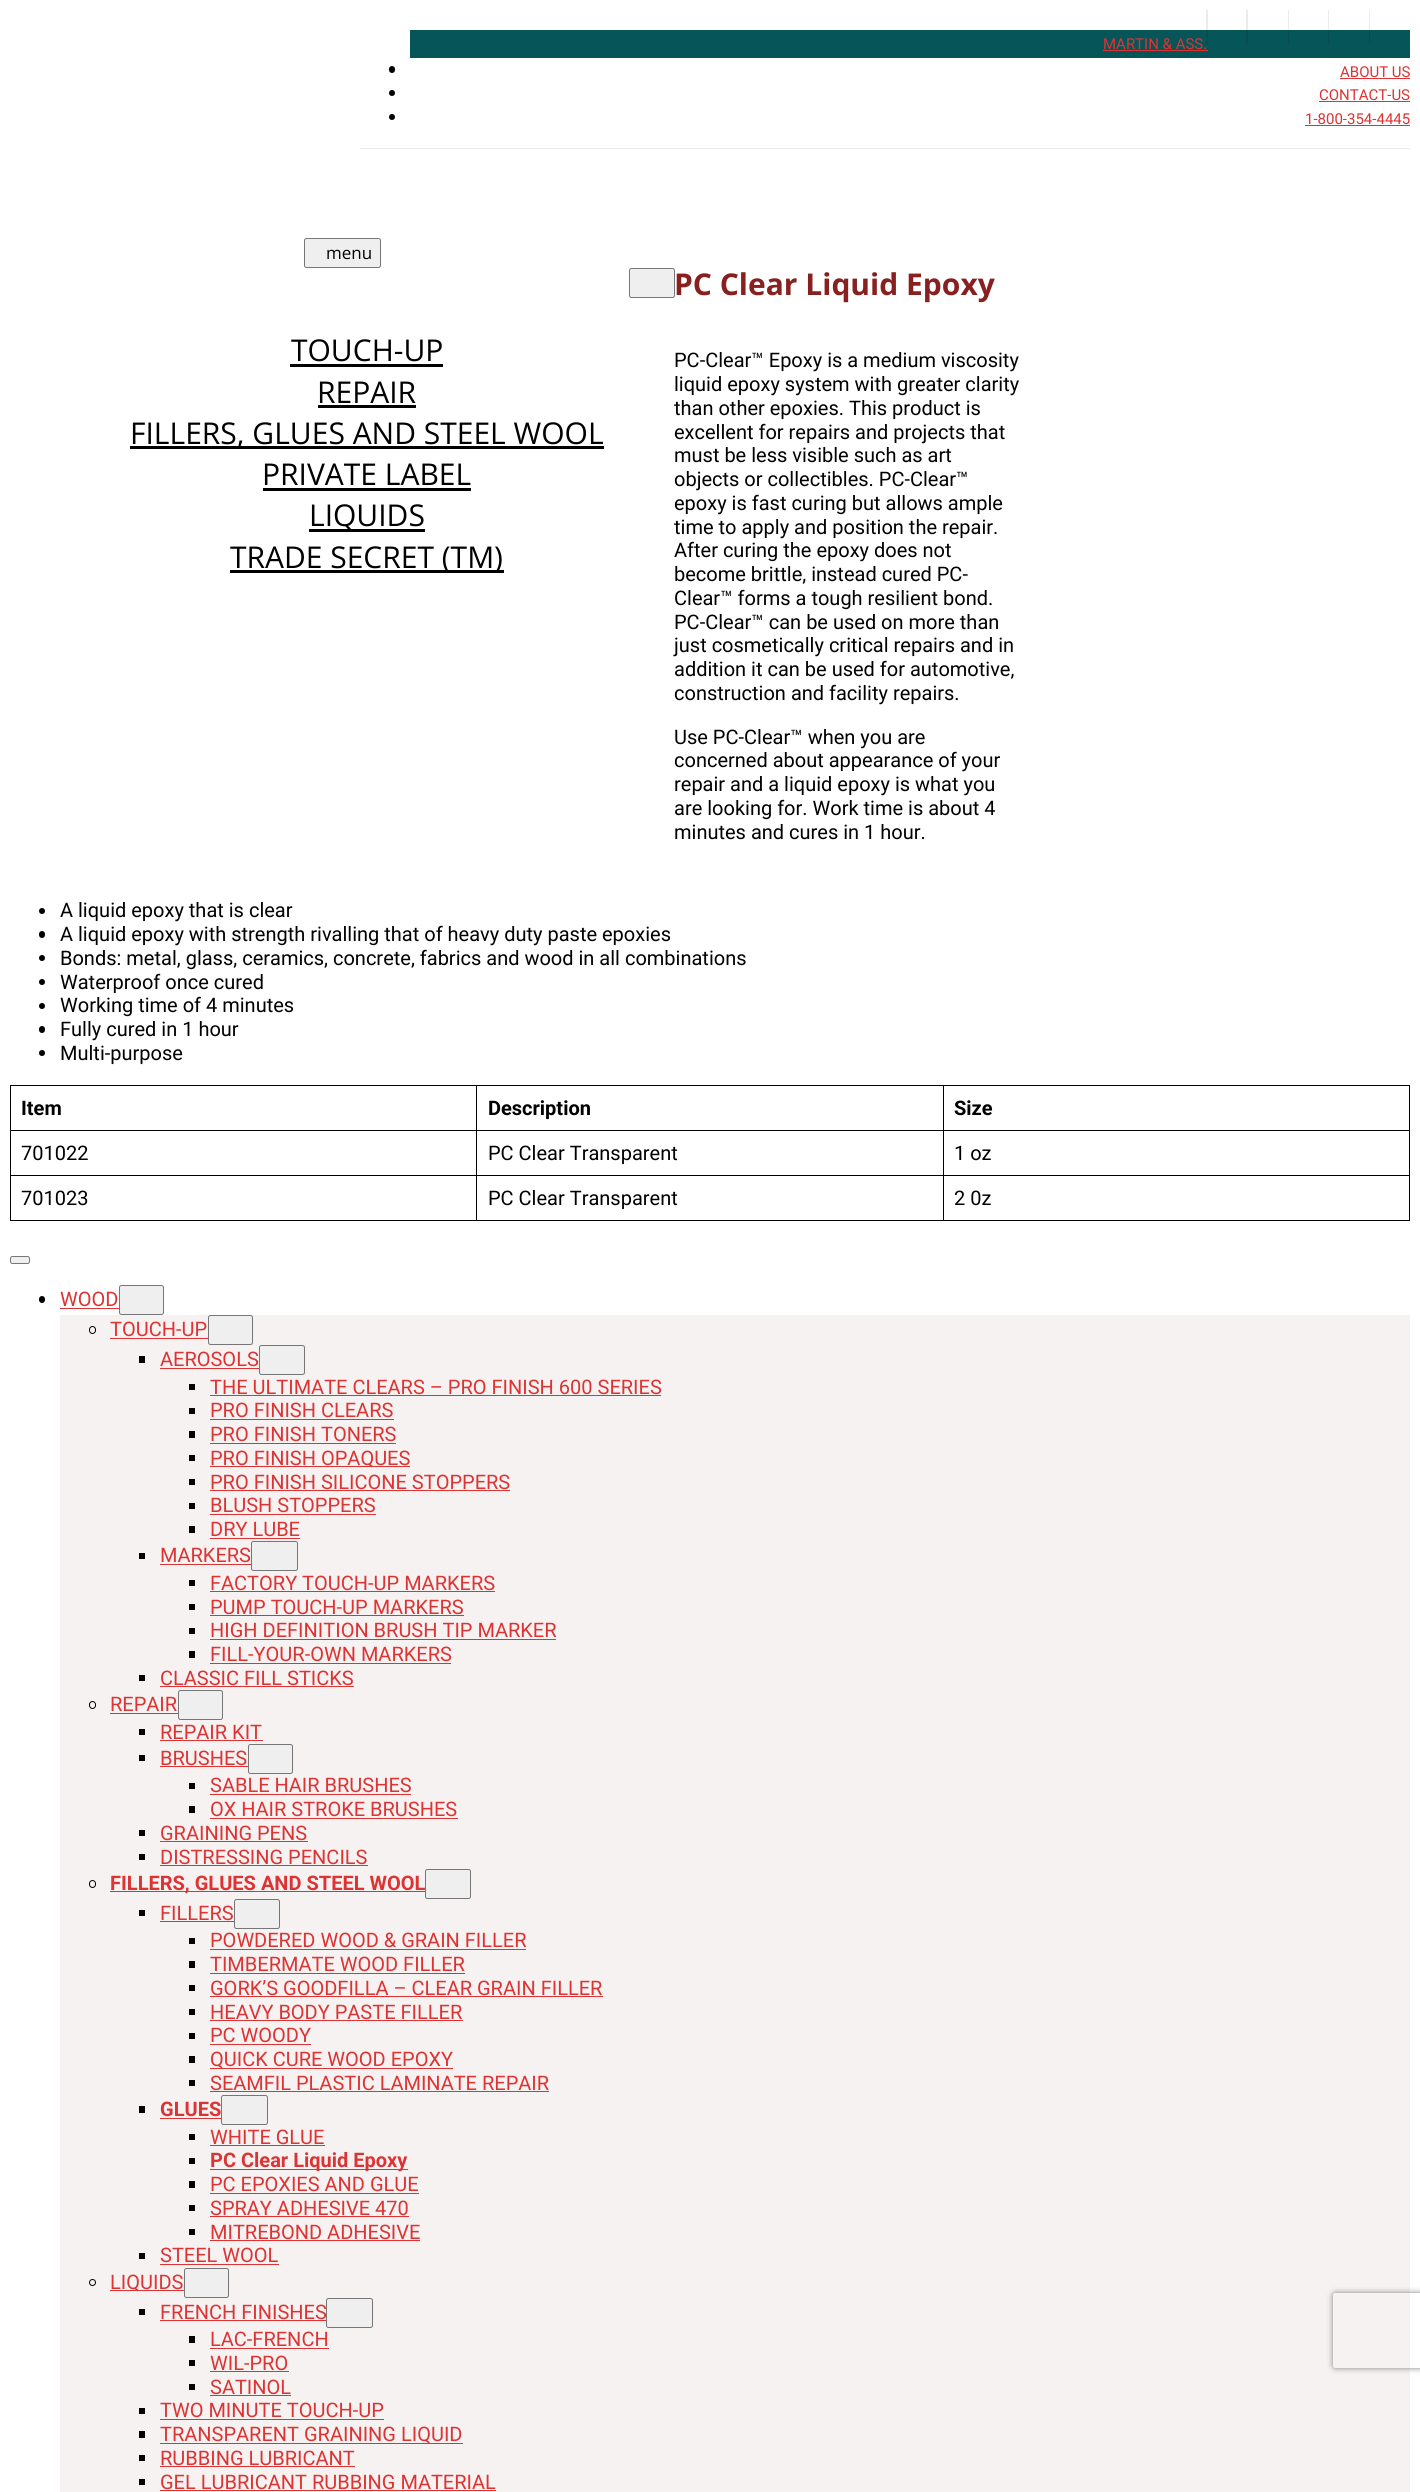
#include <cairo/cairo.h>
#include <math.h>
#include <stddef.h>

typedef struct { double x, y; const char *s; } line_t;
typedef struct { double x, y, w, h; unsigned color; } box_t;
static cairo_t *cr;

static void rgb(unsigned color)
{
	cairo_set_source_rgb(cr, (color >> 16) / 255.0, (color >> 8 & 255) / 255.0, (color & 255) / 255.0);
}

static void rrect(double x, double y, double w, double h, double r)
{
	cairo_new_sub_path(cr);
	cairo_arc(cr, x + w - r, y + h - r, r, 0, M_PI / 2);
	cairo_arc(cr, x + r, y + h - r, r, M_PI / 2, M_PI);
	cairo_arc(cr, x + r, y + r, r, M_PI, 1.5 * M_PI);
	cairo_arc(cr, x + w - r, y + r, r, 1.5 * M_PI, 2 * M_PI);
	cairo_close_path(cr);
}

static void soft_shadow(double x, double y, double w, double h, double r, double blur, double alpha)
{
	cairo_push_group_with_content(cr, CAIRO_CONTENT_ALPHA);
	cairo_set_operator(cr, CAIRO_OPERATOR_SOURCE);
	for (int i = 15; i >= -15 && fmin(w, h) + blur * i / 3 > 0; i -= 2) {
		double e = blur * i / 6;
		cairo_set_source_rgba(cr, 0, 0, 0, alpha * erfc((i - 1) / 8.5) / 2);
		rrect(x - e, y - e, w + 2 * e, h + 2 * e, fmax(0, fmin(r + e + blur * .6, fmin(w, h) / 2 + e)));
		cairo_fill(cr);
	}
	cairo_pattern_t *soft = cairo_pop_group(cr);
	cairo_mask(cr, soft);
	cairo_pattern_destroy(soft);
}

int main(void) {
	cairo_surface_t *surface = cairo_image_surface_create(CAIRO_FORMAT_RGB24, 1420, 2492);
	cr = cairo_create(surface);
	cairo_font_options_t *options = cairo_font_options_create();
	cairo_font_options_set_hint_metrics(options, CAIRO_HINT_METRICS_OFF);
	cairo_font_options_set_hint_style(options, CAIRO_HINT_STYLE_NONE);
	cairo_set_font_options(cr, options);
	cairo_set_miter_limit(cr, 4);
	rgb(0xffffff);
	cairo_paint(cr);
	{
		static const box_t items[] = {
			{1206, 10, 2, 20, 0xebebeb},
			{1246, 10, 2, 20, 0xebebeb},
			{1288, 10, 1, 20, 0xebebeb},
			{1328, 10, 1, 20, 0xebebeb},
			{1369, 10, 1, 20, 0xebebeb},
			{360, 148, 1050, 1, 0xebebeb},
			{410, 30, 1000, 28, 0x065558},
			{1206, 30, 2, 15, 0x064e51},
			{1246, 30, 2, 15, 0x064e51},
			{1288, 30, 1, 15, 0x064e51},
			{1328, 30, 1, 15, 0x064e51},
			{1369, 30, 1, 15, 0x064e51},
			{1103, 50, 105, 1, 0xdd3333},
		};
		for (size_t i = 0; i < sizeof items / sizeof *items; i++) {
			rgb(items[i].color);
			cairo_rectangle(cr, items[i].x, items[i].y, items[i].w, items[i].h);
			cairo_fill(cr);
		}
	}
	rgb(0x000000);
	rrect(389, 66, 6, 7, 3);
	cairo_fill(cr);
	rgb(0xdd3333);
	cairo_rectangle(cr, 1340, 78, 70, 1);
	cairo_fill(cr);
	rgb(0x000000);
	cairo_arc(cr, 392, 93, 3, 0, 2 * M_PI);
	cairo_fill(cr);
	rgb(0xdd3333);
	cairo_rectangle(cr, 1319, 101, 91, 1);
	cairo_fill(cr);
	rgb(0x000000);
	cairo_arc(cr, 392, 117, 3, 0, 2 * M_PI);
	cairo_fill(cr);
	rgb(0xdd3333);
	cairo_rectangle(cr, 1305, 125, 105, 1);
	cairo_fill(cr);
	rgb(0xefefef);
	rrect(304.5, 238.5, 76, 29, 2);
	cairo_fill_preserve(cr);
	rgb(0x767676);
	cairo_set_line_width(cr, 1);
	cairo_stroke(cr);
	rgb(0xefefef);
	rrect(629.5, 268.5, 45, 29, 2);
	cairo_fill_preserve(cr);
	rgb(0x767676);
	cairo_stroke(cr);
	{
		static const box_t items[] = {
			{290, 364, 153, 3, 0x000000},
			{318, 405, 98, 3, 0x000000},
			{130, 446, 474, 3, 0x000000},
			{263, 488, 208, 3, 0x000000},
			{309, 529, 116, 3, 0x000000},
			{230, 570, 274, 3, 0x000000},
		};
		for (size_t i = 0; i < sizeof items / sizeof *items; i++) {
			rgb(items[i].color);
			cairo_rectangle(cr, items[i].x, items[i].y, items[i].w, items[i].h);
			cairo_fill(cr);
		}
	}
	cairo_arc(cr, 42, 911, 3, 0, 2 * M_PI);
	cairo_fill(cr);
	rrect(39, 931, 6, 7, 3);
	cairo_fill(cr);
	cairo_arc(cr, 42, 958, 3, 0, 2 * M_PI);
	cairo_fill(cr);
	cairo_arc(cr, 42, 982, 3, 0, 2 * M_PI);
	cairo_fill(cr);
	cairo_arc(cr, 42, 1006, 3, 0, 2 * M_PI);
	cairo_fill(cr);
	rrect(39, 1026, 6, 7, 3);
	cairo_fill(cr);
	cairo_arc(cr, 42, 1053, 3, 0, 2 * M_PI);
	cairo_fill(cr);
	{
		static const box_t items[] = {
			{943, 1085, 467, 1, 0x000000},
			{943, 1130, 467, 1, 0x000000},
			{943, 1175, 467, 1, 0x000000},
			{1409, 1175, 1, 46, 0x000000},
			{943, 1220, 467, 1, 0x000000},
			{943, 1175, 1, 46, 0x000000},
			{476, 1175, 468, 1, 0x000000},
			{943, 1130, 1, 46, 0x000000},
			{476, 1130, 468, 1, 0x000000},
			{943, 1085, 1, 46, 0x000000},
			{476, 1085, 468, 1, 0x000000},
			{476, 1220, 468, 1, 0x000000},
			{476, 1175, 1, 46, 0x000000},
			{10, 1175, 468, 1, 0x000000},
			{476, 1130, 1, 46, 0x000000},
			{10, 1130, 468, 1, 0x000000},
			{476, 1085, 1, 46, 0x000000},
			{10, 1085, 468, 1, 0x000000},
			{10, 1220, 468, 1, 0x000000},
			{10, 1175, 1, 46, 0x000000},
			{10, 1130, 1, 46, 0x000000},
			{10, 1085, 1, 46, 0x000000},
			{1409, 1130, 1, 46, 0x000000},
			{1409, 1085, 1, 46, 0x000000},
		};
		for (size_t i = 0; i < sizeof items / sizeof *items; i++) {
			rgb(items[i].color);
			cairo_rectangle(cr, items[i].x, items[i].y, items[i].w, items[i].h);
			cairo_fill(cr);
		}
	}
	rgb(0xefefef);
	rrect(10.5, 1256.5, 19, 7, 2);
	cairo_fill_preserve(cr);
	rgb(0x767676);
	cairo_stroke(cr);
	rgb(0x000000);
	rrect(39, 1296, 6, 7, 3);
	cairo_fill(cr);
	rgb(0xdd3333);
	cairo_rectangle(cr, 60, 1308, 59, 1);
	cairo_fill(cr);
	rgb(0xefefef);
	rrect(119.5, 1285.5, 44, 29, 2);
	cairo_fill_preserve(cr);
	rgb(0x767676);
	cairo_stroke(cr);
	rgb(0xf7f2f2);
	cairo_rectangle(cr, 60, 1315, 1350, 1177);
	cairo_fill(cr);
	rrect(89.5, 1326.5, 6, 7, 3);
	rgb(0x000000);
	cairo_stroke(cr);
	rgb(0xdd3333);
	cairo_rectangle(cr, 110, 1338, 98, 1);
	cairo_fill(cr);
	rgb(0xefefef);
	rrect(208.5, 1315.5, 44, 29, 2);
	cairo_fill_preserve(cr);
	rgb(0x767676);
	cairo_stroke(cr);
	rgb(0x000000);
	cairo_rectangle(cr, 139, 1356, 6, 7);
	cairo_fill(cr);
	rgb(0xdd3333);
	cairo_rectangle(cr, 160, 1368, 99, 1);
	cairo_fill(cr);
	rgb(0xefefef);
	rrect(259.5, 1345.5, 45, 29, 2);
	cairo_fill_preserve(cr);
	rgb(0x767676);
	cairo_stroke(cr);
	{
		static const box_t items[] = {
			{189, 1384, 6, 6, 0x000000},
			{210, 1395, 451, 1, 0xdd3333},
			{189, 1408, 6, 6, 0x000000},
			{210, 1419, 184, 1, 0xdd3333},
			{189, 1431, 6, 7, 0x000000},
			{210, 1443, 186, 1, 0xdd3333},
			{189, 1455, 6, 6, 0x000000},
			{210, 1466, 200, 1, 0xdd3333},
			{189, 1479, 6, 6, 0x000000},
			{210, 1490, 300, 1, 0xdd3333},
			{189, 1503, 6, 6, 0x000000},
			{210, 1514, 166, 1, 0xdd3333},
			{189, 1526, 6, 7, 0x000000},
			{210, 1538, 90, 1, 0xdd3333},
			{139, 1553, 6, 6, 0x000000},
			{160, 1564, 91, 1, 0xdd3333},
		};
		for (size_t i = 0; i < sizeof items / sizeof *items; i++) {
			rgb(items[i].color);
			cairo_rectangle(cr, items[i].x, items[i].y, items[i].w, items[i].h);
			cairo_fill(cr);
		}
	}
	rgb(0xefefef);
	rrect(251.5, 1541.5, 46, 29, 2);
	cairo_fill_preserve(cr);
	rgb(0x767676);
	cairo_stroke(cr);
	{
		static const box_t items[] = {
			{189, 1580, 6, 6, 0x000000},
			{210, 1591, 285, 1, 0xdd3333},
			{189, 1604, 6, 6, 0x000000},
			{210, 1615, 254, 1, 0xdd3333},
			{189, 1628, 6, 6, 0x000000},
			{210, 1639, 346, 1, 0xdd3333},
			{189, 1651, 6, 7, 0x000000},
			{210, 1663, 241, 1, 0xdd3333},
			{139, 1675, 6, 6, 0x000000},
			{160, 1686, 194, 1, 0xdd3333},
		};
		for (size_t i = 0; i < sizeof items / sizeof *items; i++) {
			rgb(items[i].color);
			cairo_rectangle(cr, items[i].x, items[i].y, items[i].w, items[i].h);
			cairo_fill(cr);
		}
	}
	rrect(89.5, 1701.5, 6, 7, 3);
	rgb(0x000000);
	cairo_stroke(cr);
	rgb(0xdd3333);
	cairo_rectangle(cr, 110, 1713, 68, 1);
	cairo_fill(cr);
	rgb(0xefefef);
	rrect(178.5, 1690.5, 44, 29, 2);
	cairo_fill_preserve(cr);
	rgb(0x767676);
	cairo_stroke(cr);
	{
		static const box_t items[] = {
			{139, 1729, 6, 6, 0x000000},
			{160, 1740, 103, 1, 0xdd3333},
			{139, 1755, 6, 6, 0x000000},
			{160, 1766, 88, 1, 0xdd3333},
		};
		for (size_t i = 0; i < sizeof items / sizeof *items; i++) {
			rgb(items[i].color);
			cairo_rectangle(cr, items[i].x, items[i].y, items[i].w, items[i].h);
			cairo_fill(cr);
		}
	}
	rgb(0xefefef);
	rrect(248.5, 1744.5, 44, 29, 2);
	cairo_fill_preserve(cr);
	rgb(0x767676);
	cairo_stroke(cr);
	{
		static const box_t items[] = {
			{189, 1783, 6, 6, 0x000000},
			{210, 1794, 201, 1, 0xdd3333},
			{189, 1806, 6, 7, 0x000000},
			{210, 1818, 248, 1, 0xdd3333},
			{139, 1830, 6, 6, 0x000000},
			{160, 1841, 148, 1, 0xdd3333},
			{139, 1854, 6, 6, 0x000000},
			{160, 1865, 208, 1, 0xdd3333},
		};
		for (size_t i = 0; i < sizeof items / sizeof *items; i++) {
			rgb(items[i].color);
			cairo_rectangle(cr, items[i].x, items[i].y, items[i].w, items[i].h);
			cairo_fill(cr);
		}
	}
	rrect(89.5, 1880.5, 6, 7, 3);
	rgb(0x000000);
	cairo_stroke(cr);
	rgb(0xdd3333);
	cairo_rectangle(cr, 110, 1891, 315, 1);
	cairo_fill(cr);
	rgb(0xefefef);
	rrect(425.5, 1869.5, 45, 29, 2);
	cairo_fill_preserve(cr);
	rgb(0x767676);
	cairo_stroke(cr);
	rgb(0x000000);
	cairo_rectangle(cr, 139, 1910, 6, 6);
	cairo_fill(cr);
	rgb(0xdd3333);
	cairo_rectangle(cr, 160, 1921, 74, 1);
	cairo_fill(cr);
	rgb(0xefefef);
	rrect(234.5, 1899.5, 45, 29, 2);
	cairo_fill_preserve(cr);
	rgb(0x767676);
	cairo_stroke(cr);
	{
		static const box_t items[] = {
			{189, 1938, 6, 6, 0x000000},
			{210, 1949, 316, 1, 0xdd3333},
			{189, 1961, 6, 7, 0x000000},
			{210, 1973, 255, 1, 0xdd3333},
			{189, 1985, 6, 6, 0x000000},
			{210, 1996, 393, 1, 0xdd3333},
			{189, 2009, 6, 6, 0x000000},
			{210, 2020, 253, 1, 0xdd3333},
			{189, 2033, 6, 6, 0x000000},
			{210, 2044, 101, 1, 0xdd3333},
			{189, 2056, 6, 7, 0x000000},
			{210, 2068, 243, 1, 0xdd3333},
			{189, 2080, 6, 6, 0x000000},
			{210, 2091, 339, 1, 0xdd3333},
			{139, 2106, 6, 7, 0x000000},
			{160, 2118, 61, 1, 0xdd3333},
		};
		for (size_t i = 0; i < sizeof items / sizeof *items; i++) {
			rgb(items[i].color);
			cairo_rectangle(cr, items[i].x, items[i].y, items[i].w, items[i].h);
			cairo_fill(cr);
		}
	}
	rgb(0xefefef);
	rrect(221.5, 2095.5, 46, 29, 2);
	cairo_fill_preserve(cr);
	rgb(0x767676);
	cairo_stroke(cr);
	{
		static const box_t items[] = {
			{189, 2134, 6, 6, 0x000000},
			{210, 2145, 115, 1, 0xdd3333},
			{189, 2158, 6, 6, 0x000000},
			{210, 2169, 198, 1, 0xdd3333},
			{189, 2181, 6, 7, 0x000000},
			{210, 2193, 209, 1, 0xdd3333},
			{189, 2205, 6, 6, 0x000000},
			{210, 2216, 199, 1, 0xdd3333},
			{189, 2229, 6, 6, 0x000000},
			{210, 2240, 210, 1, 0xdd3333},
			{139, 2253, 6, 6, 0x000000},
			{160, 2264, 119, 1, 0xdd3333},
		};
		for (size_t i = 0; i < sizeof items / sizeof *items; i++) {
			rgb(items[i].color);
			cairo_rectangle(cr, items[i].x, items[i].y, items[i].w, items[i].h);
			cairo_fill(cr);
		}
	}
	cairo_arc(cr, 92.5, 2282.5, 3, 0, 2 * M_PI);
	rgb(0x000000);
	cairo_stroke(cr);
	rgb(0xdd3333);
	cairo_rectangle(cr, 110, 2290, 74, 1);
	cairo_fill(cr);
	rgb(0xefefef);
	rrect(184.5, 2268.5, 44, 29, 2);
	cairo_fill_preserve(cr);
	rgb(0x767676);
	cairo_stroke(cr);
	{
		static const box_t items[] = {
			{139, 2309, 6, 6, 0x000000},
			{160, 2320, 166, 1, 0xdd3333},
			{189, 2336, 6, 7, 0x000000},
			{210, 2348, 119, 1, 0xdd3333},
			{189, 2360, 6, 6, 0x000000},
			{210, 2371, 79, 1, 0xdd3333},
			{189, 2384, 6, 6, 0x000000},
			{210, 2395, 81, 1, 0xdd3333},
			{139, 2408, 6, 6, 0x000000},
			{160, 2419, 224, 1, 0xdd3333},
			{139, 2431, 6, 7, 0x000000},
			{160, 2443, 303, 1, 0xdd3333},
			{139, 2455, 6, 6, 0x000000},
			{160, 2466, 195, 1, 0xdd3333},
			{139, 2479, 6, 6, 0x000000},
			{160, 2490, 336, 1, 0xdd3333},
		};
		for (size_t i = 0; i < sizeof items / sizeof *items; i++) {
			rgb(items[i].color);
			cairo_rectangle(cr, items[i].x, items[i].y, items[i].w, items[i].h);
			cairo_fill(cr);
		}
	}
	cairo_save(cr);
	cairo_set_fill_rule(cr, CAIRO_FILL_RULE_EVEN_ODD);
	cairo_new_path(cr);
	cairo_move_to(cr, 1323, 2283);
	cairo_line_to(cr, 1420, 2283);
	cairo_line_to(cr, 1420, 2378);
	cairo_line_to(cr, 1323, 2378);
	cairo_close_path(cr);
	cairo_move_to(cr, 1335.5, 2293);
	cairo_line_to(cr, 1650.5, 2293);
	cairo_curve_to(cr, 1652, 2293, 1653, 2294, 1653, 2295.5);
	cairo_line_to(cr, 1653, 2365.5);
	cairo_curve_to(cr, 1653, 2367, 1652, 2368, 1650.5, 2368);
	cairo_line_to(cr, 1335.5, 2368);
	cairo_curve_to(cr, 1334, 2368, 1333, 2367, 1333, 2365.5);
	cairo_line_to(cr, 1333, 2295.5);
	cairo_curve_to(cr, 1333, 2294, 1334, 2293, 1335.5, 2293);
	cairo_close_path(cr);
	cairo_clip(cr);
	rgb(0x808080);
	soft_shadow(1333, 2293, 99, 75, 2.5, 3, 1);
	cairo_restore(cr);
	cairo_select_font_face(cr, "Roboto", CAIRO_FONT_SLANT_NORMAL, CAIRO_FONT_WEIGHT_NORMAL);
	cairo_set_font_size(cr, 15);
	{
		static const line_t items[] = {
			{1103, 49, "MARTIN & ASS."},
			{1340, 77, "ABOUT US"},
			{1319, 100, "CONTACT-US"},
			{1305, 124, "1-800-354-4445"},
		};
		for (size_t i = 0; i < sizeof items / sizeof *items; i++) {
			cairo_move_to(cr, items[i].x, items[i].y);
			cairo_show_text(cr, items[i].s);
		}
	}
	cairo_select_font_face(cr, "Open Sans", CAIRO_FONT_SLANT_NORMAL, CAIRO_FONT_WEIGHT_NORMAL);
	cairo_set_font_size(cr, 17);
	rgb(0x000000);
	cairo_move_to(cr, 326, 259);
	cairo_show_text(cr, "menu");
	cairo_set_font_size(cr, 30);
	{
		static const line_t items[] = {
			{291, 361, "TOUCH-UP"},
			{317, 403, "REPAIR"},
			{130, 444, "FILLERS, GLUES AND STEEL WOOL"},
			{262, 485, "PRIVATE LABEL"},
			{309, 526, "LIQUIDS"},
			{230, 568, "TRADE SECRET (TM)"},
		};
		for (size_t i = 0; i < sizeof items / sizeof *items; i++) {
			cairo_move_to(cr, items[i].x, items[i].y);
			cairo_show_text(cr, items[i].s);
		}
	}
	cairo_select_font_face(cr, "Open Sans", CAIRO_FONT_SLANT_NORMAL, CAIRO_FONT_WEIGHT_BOLD);
	rgb(0x882020);
	cairo_move_to(cr, 674, 295);
	cairo_show_text(cr, "PC Clear Liquid Epoxy");
	cairo_select_font_face(cr, "Roboto", CAIRO_FONT_SLANT_NORMAL, CAIRO_FONT_WEIGHT_NORMAL);
	cairo_set_font_size(cr, 20);
	rgb(0x000000);
	{
		static const line_t items[] = {
			{674, 367, "PC-Clear™ Epoxy is a medium viscosity"},
			{674, 391, "liquid epoxy system with greater clarity"},
			{674, 415, "than other epoxies. This product is"},
			{674, 439, "excellent for repairs and projects that"},
			{674, 462, "must be less visible such as art"},
			{674, 486, "objects or collectibles. PC-Clear™"},
			{674, 510, "epoxy is fast curing but allows ample"},
			{674, 534, "time to apply and position the repair."},
			{674, 557, "After curing the epoxy does not"},
			{674, 581, "become brittle, instead cured PC-"},
			{674, 605, "Clear™ forms a tough resilient bond."},
			{674, 629, "PC-Clear™ can be used on more than"},
			{674, 652, "just cosmetically critical repairs and in"},
			{674, 676, "addition it can be used for automotive,"},
			{674, 700, "construction and facility repairs."},
			{674, 744, "Use PC-Clear™ when you are"},
			{674, 767, "concerned about appearance of your"},
			{674, 791, "repair and a liquid epoxy is what you"},
			{674, 815, "are looking for. Work time is about 4"},
			{674, 839, "minutes and cures in 1 hour."},
			{60, 917, "A liquid epoxy that is clear"},
			{60, 941, "A liquid epoxy with strength rivalling that of heavy duty paste epoxies"},
			{60, 965, "Bonds: metal, glass, ceramics, concrete, fabrics and wood in all combinations"},
			{60, 989, "Waterproof once cured"},
			{60, 1012, "Working time of 4 minutes"},
			{60, 1036, "Fully cured in 1 hour"},
			{60, 1060, "Multi-purpose"},
		};
		for (size_t i = 0; i < sizeof items / sizeof *items; i++) {
			cairo_move_to(cr, items[i].x, items[i].y);
			cairo_show_text(cr, items[i].s);
		}
	}
	cairo_select_font_face(cr, "Roboto", CAIRO_FONT_SLANT_NORMAL, CAIRO_FONT_WEIGHT_BOLD);
	{
		static const line_t items[] = {
			{21, 1115, "Item"},
			{488, 1115, "Description"},
			{954, 1115, "Size"},
		};
		for (size_t i = 0; i < sizeof items / sizeof *items; i++) {
			cairo_move_to(cr, items[i].x, items[i].y);
			cairo_show_text(cr, items[i].s);
		}
	}
	cairo_select_font_face(cr, "Roboto", CAIRO_FONT_SLANT_NORMAL, CAIRO_FONT_WEIGHT_NORMAL);
	{
		static const line_t items[] = {
			{21, 1160, "701022"},
			{488, 1160, "PC Clear Transparent"},
			{954, 1160, "1 oz"},
			{21, 1205, "701023"},
			{488, 1205, "PC Clear Transparent"},
			{954, 1205, "2 0z"},
		};
		for (size_t i = 0; i < sizeof items / sizeof *items; i++) {
			cairo_move_to(cr, items[i].x, items[i].y);
			cairo_show_text(cr, items[i].s);
		}
	}
	rgb(0xdd3333);
	{
		static const line_t items[] = {
			{60, 1306, "WOOD"},
			{110, 1336, "TOUCH-UP"},
			{160, 1366, "AEROSOLS"},
			{210, 1394, "THE ULTIMATE CLEARS – PRO FINISH 600 SERIES"},
			{210, 1417, "PRO FINISH CLEARS"},
			{210, 1441, "PRO FINISH TONERS"},
			{210, 1465, "PRO FINISH OPAQUES"},
			{210, 1489, "PRO FINISH SILICONE STOPPERS"},
			{210, 1512, "BLUSH STOPPERS"},
			{210, 1536, "DRY LUBE"},
			{160, 1562, "MARKERS"},
			{210, 1590, "FACTORY TOUCH-UP MARKERS"},
			{210, 1614, "PUMP TOUCH-UP MARKERS"},
			{210, 1637, "HIGH DEFINITION BRUSH TIP MARKER"},
			{210, 1661, "FILL-YOUR-OWN MARKERS"},
			{160, 1685, "CLASSIC FILL STICKS"},
			{110, 1711, "REPAIR"},
			{160, 1739, "REPAIR KIT"},
			{160, 1765, "BRUSHES"},
			{210, 1792, "SABLE HAIR BRUSHES"},
			{210, 1816, "OX HAIR STROKE BRUSHES"},
			{160, 1840, "GRAINING PENS"},
			{160, 1864, "DISTRESSING PENCILS"},
		};
		for (size_t i = 0; i < sizeof items / sizeof *items; i++) {
			cairo_move_to(cr, items[i].x, items[i].y);
			cairo_show_text(cr, items[i].s);
		}
	}
	cairo_select_font_face(cr, "Roboto", CAIRO_FONT_SLANT_NORMAL, CAIRO_FONT_WEIGHT_BOLD);
	cairo_move_to(cr, 110, 1890);
	cairo_show_text(cr, "FILLERS, GLUES AND STEEL WOOL");
	cairo_select_font_face(cr, "Roboto", CAIRO_FONT_SLANT_NORMAL, CAIRO_FONT_WEIGHT_NORMAL);
	{
		static const line_t items[] = {
			{160, 1920, "FILLERS"},
			{210, 1947, "POWDERED WOOD & GRAIN FILLER"},
			{210, 1971, "TIMBERMATE WOOD FILLER"},
			{210, 1995, "GORK’S GOODFILLA – CLEAR GRAIN FILLER"},
			{210, 2019, "HEAVY BODY PASTE FILLER"},
			{210, 2042, "PC WOODY"},
			{210, 2066, "QUICK CURE WOOD EPOXY"},
			{210, 2090, "SEAMFIL PLASTIC LAMINATE REPAIR"},
		};
		for (size_t i = 0; i < sizeof items / sizeof *items; i++) {
			cairo_move_to(cr, items[i].x, items[i].y);
			cairo_show_text(cr, items[i].s);
		}
	}
	cairo_select_font_face(cr, "Roboto", CAIRO_FONT_SLANT_NORMAL, CAIRO_FONT_WEIGHT_BOLD);
	cairo_move_to(cr, 160, 2116);
	cairo_show_text(cr, "GLUES");
	cairo_select_font_face(cr, "Roboto", CAIRO_FONT_SLANT_NORMAL, CAIRO_FONT_WEIGHT_NORMAL);
	cairo_move_to(cr, 210, 2144);
	cairo_show_text(cr, "WHITE GLUE");
	cairo_select_font_face(cr, "Roboto", CAIRO_FONT_SLANT_NORMAL, CAIRO_FONT_WEIGHT_BOLD);
	cairo_move_to(cr, 210, 2167);
	cairo_show_text(cr, "PC Clear Liquid Epoxy");
	cairo_select_font_face(cr, "Roboto", CAIRO_FONT_SLANT_NORMAL, CAIRO_FONT_WEIGHT_NORMAL);
	{
		static const line_t items[] = {
			{210, 2191, "PC EPOXIES AND GLUE"},
			{210, 2215, "SPRAY ADHESIVE 470"},
			{210, 2239, "MITREBOND ADHESIVE"},
			{160, 2262, "STEEL WOOL"},
			{110, 2289, "LIQUIDS"},
			{160, 2319, "FRENCH FINISHES"},
		};
		for (size_t i = 0; i < sizeof items / sizeof *items; i++) {
			cairo_move_to(cr, items[i].x, items[i].y);
			cairo_show_text(cr, items[i].s);
		}
	}
	rgb(0xefefef);
	rrect(326.5, 2298.5, 46, 29, 2);
	cairo_fill_preserve(cr);
	rgb(0x767676);
	cairo_stroke(cr);
	rgb(0xdd3333);
	{
		static const line_t items[] = {
			{210, 2346, "LAC-FRENCH"},
			{210, 2370, "WIL-PRO"},
			{210, 2394, "SATINOL"},
			{160, 2417, "TWO MINUTE TOUCH-UP"},
			{160, 2441, "TRANSPARENT GRAINING LIQUID"},
			{160, 2465, "RUBBING LUBRICANT"},
			{160, 2489, "GEL LUBRICANT RUBBING MATERIAL"},
		};
		for (size_t i = 0; i < sizeof items / sizeof *items; i++) {
			cairo_move_to(cr, items[i].x, items[i].y);
			cairo_show_text(cr, items[i].s);
		}
	}
	cairo_surface_write_to_png(surface, "page.png");
	cairo_font_options_destroy(options);
	cairo_destroy(cr);
	cairo_surface_destroy(surface);
	return 0;
}
